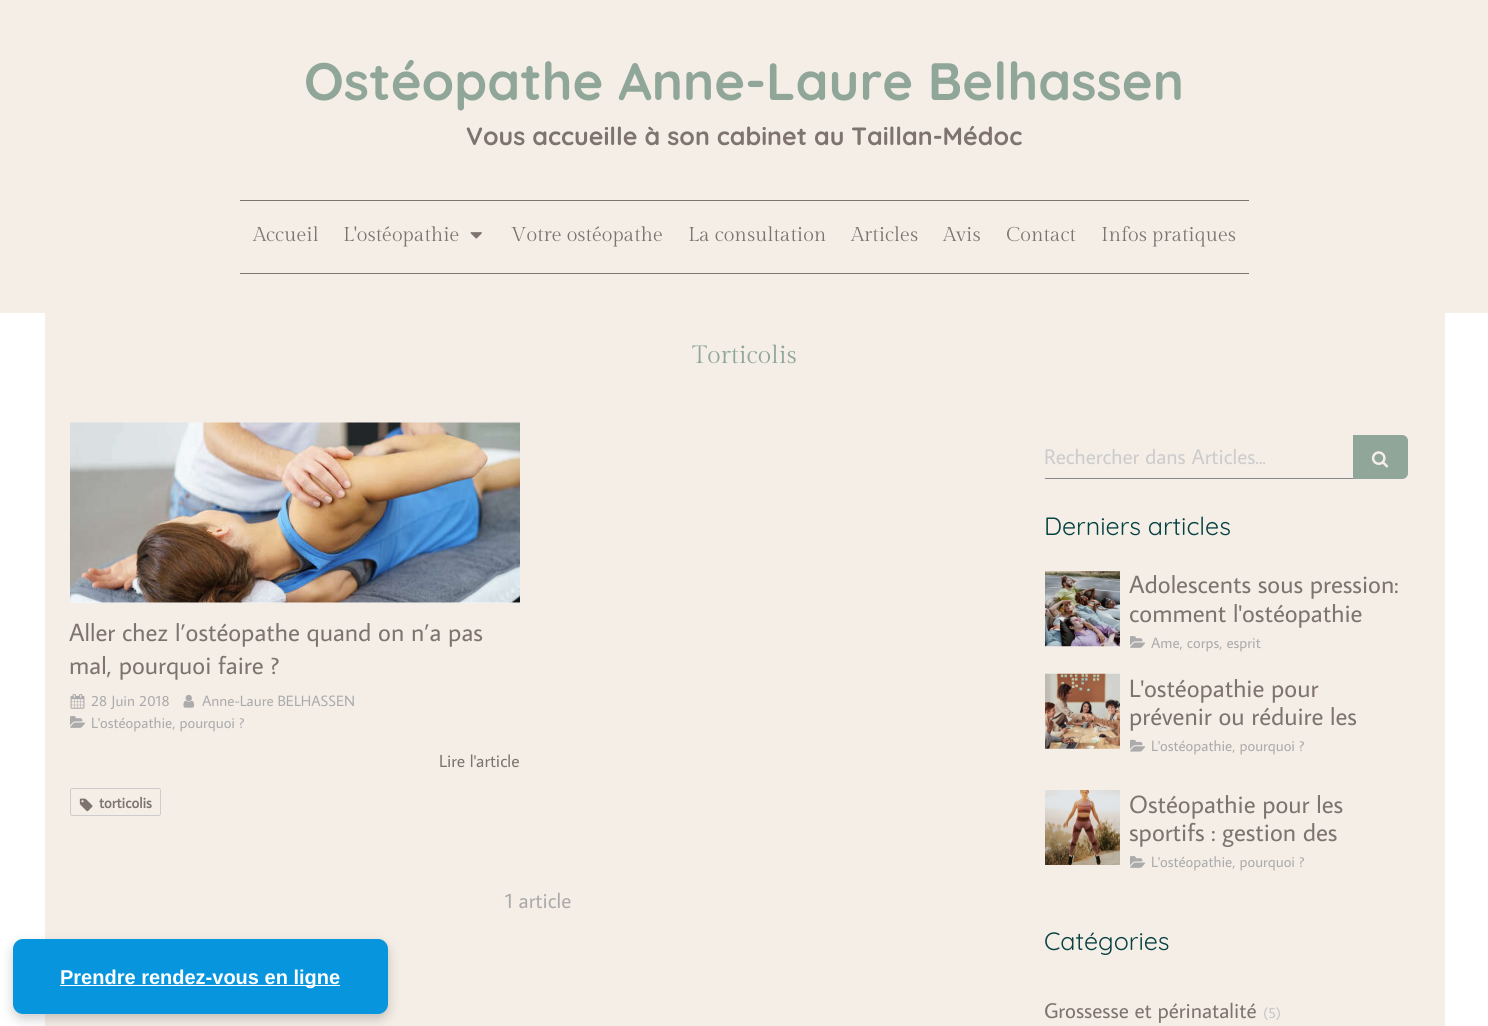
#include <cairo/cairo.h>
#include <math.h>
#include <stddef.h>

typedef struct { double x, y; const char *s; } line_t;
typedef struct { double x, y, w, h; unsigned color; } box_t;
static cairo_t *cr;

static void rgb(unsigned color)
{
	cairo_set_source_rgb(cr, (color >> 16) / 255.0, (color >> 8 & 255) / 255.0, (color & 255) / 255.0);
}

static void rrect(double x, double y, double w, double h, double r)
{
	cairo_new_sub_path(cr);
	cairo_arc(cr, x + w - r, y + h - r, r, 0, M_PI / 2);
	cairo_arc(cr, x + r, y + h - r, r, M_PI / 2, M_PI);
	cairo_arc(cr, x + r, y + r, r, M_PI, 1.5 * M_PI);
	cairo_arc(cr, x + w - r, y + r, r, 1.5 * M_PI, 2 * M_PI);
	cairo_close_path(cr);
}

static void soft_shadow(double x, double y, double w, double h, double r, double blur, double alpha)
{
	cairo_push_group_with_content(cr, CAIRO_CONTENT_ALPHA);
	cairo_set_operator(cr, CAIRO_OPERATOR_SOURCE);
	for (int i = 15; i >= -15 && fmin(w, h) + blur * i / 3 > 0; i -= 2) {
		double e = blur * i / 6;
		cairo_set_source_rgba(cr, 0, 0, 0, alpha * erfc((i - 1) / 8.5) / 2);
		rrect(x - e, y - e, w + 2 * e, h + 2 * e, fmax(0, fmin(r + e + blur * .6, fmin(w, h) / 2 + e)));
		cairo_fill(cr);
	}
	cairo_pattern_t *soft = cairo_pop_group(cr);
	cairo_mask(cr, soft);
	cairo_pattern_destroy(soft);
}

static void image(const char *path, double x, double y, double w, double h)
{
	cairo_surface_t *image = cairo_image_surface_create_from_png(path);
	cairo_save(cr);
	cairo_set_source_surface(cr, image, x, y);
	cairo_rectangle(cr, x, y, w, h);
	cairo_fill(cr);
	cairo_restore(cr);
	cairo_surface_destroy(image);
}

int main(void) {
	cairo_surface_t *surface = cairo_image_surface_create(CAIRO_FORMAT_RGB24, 1488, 1026);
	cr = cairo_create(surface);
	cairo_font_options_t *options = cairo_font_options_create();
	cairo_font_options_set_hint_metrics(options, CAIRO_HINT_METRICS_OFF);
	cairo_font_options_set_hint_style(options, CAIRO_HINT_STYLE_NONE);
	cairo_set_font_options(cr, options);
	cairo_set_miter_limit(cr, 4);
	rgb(0xffffff);
	cairo_paint(cr);
	{
		static const box_t items[] = {
			{0, 0, 1488, 313, 0xf5eee7},
			{240, 200, 1009, 1, 0x7f736f},
			{240, 273, 1009, 1, 0x7f736f},
		};
		for (size_t i = 0; i < sizeof items / sizeof *items; i++) {
			rgb(items[i].color);
			cairo_rectangle(cr, items[i].x, items[i].y, items[i].w, items[i].h);
			cairo_fill(cr);
		}
	}
	image("img/1.png", 470, 232, 12, 7);
	rgb(0xf5eee7);
	cairo_rectangle(cr, 45, 313, 1400, 713);
	cairo_fill(cr);
	rgb(0xfafafa);
	cairo_rectangle(cr, 70, 602, 450, 1);
	cairo_fill(cr);
	image("img/2.png", 70, 422, 450, 181);
	image("img/3.png", 70, 694, 15, 15);
	image("img/4.png", 183, 694, 12, 14);
	image("img/5.png", 70, 716, 15, 12);
	rrect(70.5, 788.5, 90, 27, 2);
	rgb(0xcccccc);
	cairo_set_line_width(cr, 1);
	cairo_stroke(cr);
	image("img/6.png", 79, 798, 14, 14);
	rgb(0x888888);
	cairo_rectangle(cr, 1045, 478, 309, 1);
	cairo_fill(cr);
	rgb(0x8fa698);
	cairo_new_path(cr);
	cairo_move_to(cr, 1353, 435);
	cairo_line_to(cr, 1402, 435);
	cairo_curve_to(cr, 1405.5, 435, 1408, 437.5, 1408, 441);
	cairo_line_to(cr, 1408, 473);
	cairo_curve_to(cr, 1408, 476.5, 1405.5, 479, 1402, 479);
	cairo_line_to(cr, 1353, 479);
	cairo_close_path(cr);
	cairo_fill(cr);
	image("img/7.png", 1371, 451, 18, 17);
	image("img/8.png", 1045, 571, 75, 76);
	image("img/5.png", 1130, 636, 15, 12);
	image("img/9.png", 1045, 673, 75, 76);
	image("img/10.png", 1130, 739, 15, 13);
	image("img/11.png", 1045, 790, 75, 75);
	image("img/5.png", 1130, 856, 15, 12);
	rgb(0x000000);
	soft_shadow(13, 944, 375, 75, 10, 6, 0.2);
	rgb(0x0796de);
	rrect(13, 939, 375, 75, 10);
	cairo_fill(cr);
	rgb(0xffffff);
	cairo_rectangle(cr, 60, 985, 280, 1);
	cairo_fill(cr);
	cairo_select_font_face(cr, "Quicksand", CAIRO_FONT_SLANT_NORMAL, CAIRO_FONT_WEIGHT_BOLD);
	cairo_set_font_size(cr, 52.5);
	rgb(0x8fa698);
	cairo_move_to(cr, 304, 100);
	cairo_show_text(cr, "Ostéopathe Anne-Laure Belhassen");
	cairo_set_font_size(cr, 25);
	rgb(0x7f736f);
	cairo_move_to(cr, 466, 145);
	cairo_show_text(cr, "Vous accueille à son cabinet au Taillan-Médoc");
	cairo_select_font_face(cr, "Gilda Display", CAIRO_FONT_SLANT_NORMAL, CAIRO_FONT_WEIGHT_NORMAL);
	cairo_set_font_size(cr, 20);
	{
		static const line_t items[] = {
			{253, 241, "Accueil"},
			{343, 241, "L'ostéopathie"},
			{511, 241, "Votre ostéopathe"},
			{688, 241, "La consultation"},
			{851, 241, "Articles"},
			{943, 241, "Avis"},
			{1006, 241, "Contact"},
			{1101, 241, "Infos pratiques"},
		};
		for (size_t i = 0; i < sizeof items / sizeof *items; i++) {
			cairo_move_to(cr, items[i].x, items[i].y);
			cairo_show_text(cr, items[i].s);
		}
	}
	cairo_set_font_size(cr, 25);
	rgb(0x8fa698);
	cairo_move_to(cr, 692, 363);
	cairo_show_text(cr, "Torticolis");
	cairo_select_font_face(cr, "Average Sans", CAIRO_FONT_SLANT_NORMAL, CAIRO_FONT_WEIGHT_NORMAL);
	rgb(0x7f736f);
	cairo_move_to(cr, 69, 641);
	cairo_show_text(cr, "Aller chez l’ostéopathe quand on n’a pas");
	cairo_move_to(cr, 69, 674);
	cairo_show_text(cr, "mal, pourquoi faire ?");
	cairo_set_font_size(cr, 15);
	rgb(0xababab);
	{
		static const line_t items[] = {
			{91, 706, "28 Juin 2018"},
			{202, 706, "Anne-Laure BELHASSEN"},
			{91, 728, "L'ostéopathie, pourquoi ?"},
		};
		for (size_t i = 0; i < sizeof items / sizeof *items; i++) {
			cairo_move_to(cr, items[i].x, items[i].y);
			cairo_show_text(cr, items[i].s);
		}
	}
	cairo_set_font_size(cr, 17.5);
	rgb(0x7f736f);
	cairo_move_to(cr, 439, 767);
	cairo_show_text(cr, "Lire l'article");
	cairo_select_font_face(cr, "Average Sans", CAIRO_FONT_SLANT_NORMAL, CAIRO_FONT_WEIGHT_BOLD);
	cairo_set_font_size(cr, 15);
	cairo_move_to(cr, 99, 808);
	cairo_show_text(cr, "torticolis");
	cairo_select_font_face(cr, "Average Sans", CAIRO_FONT_SLANT_NORMAL, CAIRO_FONT_WEIGHT_NORMAL);
	cairo_set_font_size(cr, 21.25);
	rgb(0xababab);
	cairo_move_to(cr, 505, 908);
	cairo_show_text(cr, "1 article");
	rgb(0xcccccc);
	cairo_move_to(cr, 1044, 464);
	cairo_show_text(cr, "Rechercher dans Articles...");
	cairo_select_font_face(cr, "Quicksand", CAIRO_FONT_SLANT_NORMAL, CAIRO_FONT_WEIGHT_NORMAL);
	cairo_set_font_size(cr, 25);
	rgb(0x054142);
	cairo_move_to(cr, 1044, 535);
	cairo_show_text(cr, "Derniers articles");
	cairo_select_font_face(cr, "Average Sans", CAIRO_FONT_SLANT_NORMAL, CAIRO_FONT_WEIGHT_NORMAL);
	rgb(0x7f736f);
	cairo_move_to(cr, 1129, 593);
	cairo_show_text(cr, "Adolescents sous pression:");
	cairo_move_to(cr, 1129, 622);
	cairo_show_text(cr, "comment l'ostéopathie");
	cairo_set_font_size(cr, 15);
	rgb(0xababab);
	cairo_move_to(cr, 1151, 648);
	cairo_show_text(cr, "Ame, corps, esprit");
	cairo_set_font_size(cr, 25);
	rgb(0x7f736f);
	cairo_move_to(cr, 1129, 697);
	cairo_show_text(cr, "L'ostéopathie pour");
	cairo_move_to(cr, 1129, 725);
	cairo_show_text(cr, "prévenir ou réduire les");
	cairo_set_font_size(cr, 15);
	rgb(0xababab);
	cairo_move_to(cr, 1151, 751);
	cairo_show_text(cr, "L'ostéopathie, pourquoi ?");
	cairo_set_font_size(cr, 25);
	rgb(0x7f736f);
	cairo_move_to(cr, 1129, 813);
	cairo_show_text(cr, "Ostéopathie pour les");
	cairo_move_to(cr, 1129, 841);
	cairo_show_text(cr, "sportifs : gestion des");
	cairo_set_font_size(cr, 15);
	rgb(0xababab);
	cairo_move_to(cr, 1151, 867);
	cairo_show_text(cr, "L'ostéopathie, pourquoi ?");
	cairo_select_font_face(cr, "Quicksand", CAIRO_FONT_SLANT_NORMAL, CAIRO_FONT_WEIGHT_NORMAL);
	cairo_set_font_size(cr, 25);
	rgb(0x054142);
	cairo_move_to(cr, 1044, 950);
	cairo_show_text(cr, "Catégories");
	cairo_select_font_face(cr, "Average Sans", CAIRO_FONT_SLANT_NORMAL, CAIRO_FONT_WEIGHT_NORMAL);
	cairo_set_font_size(cr, 21.25);
	rgb(0x7f736f);
	cairo_move_to(cr, 1044, 1018);
	cairo_show_text(cr, "Grossesse et périnatalité");
	cairo_set_font_size(cr, 15);
	rgb(0xc6c6c6);
	cairo_move_to(cr, 1263, 1018);
	cairo_show_text(cr, "(5)");
	cairo_select_font_face(cr, "Liberation Sans", CAIRO_FONT_SLANT_NORMAL, CAIRO_FONT_WEIGHT_BOLD);
	cairo_set_font_size(cr, 20);
	rgb(0xffffff);
	cairo_move_to(cr, 60, 984);
	cairo_show_text(cr, "Prendre rendez-vous en ligne");
	cairo_surface_write_to_png(surface, "page.png");
	cairo_font_options_destroy(options);
	cairo_destroy(cr);
	cairo_surface_destroy(surface);
	return 0;
}
